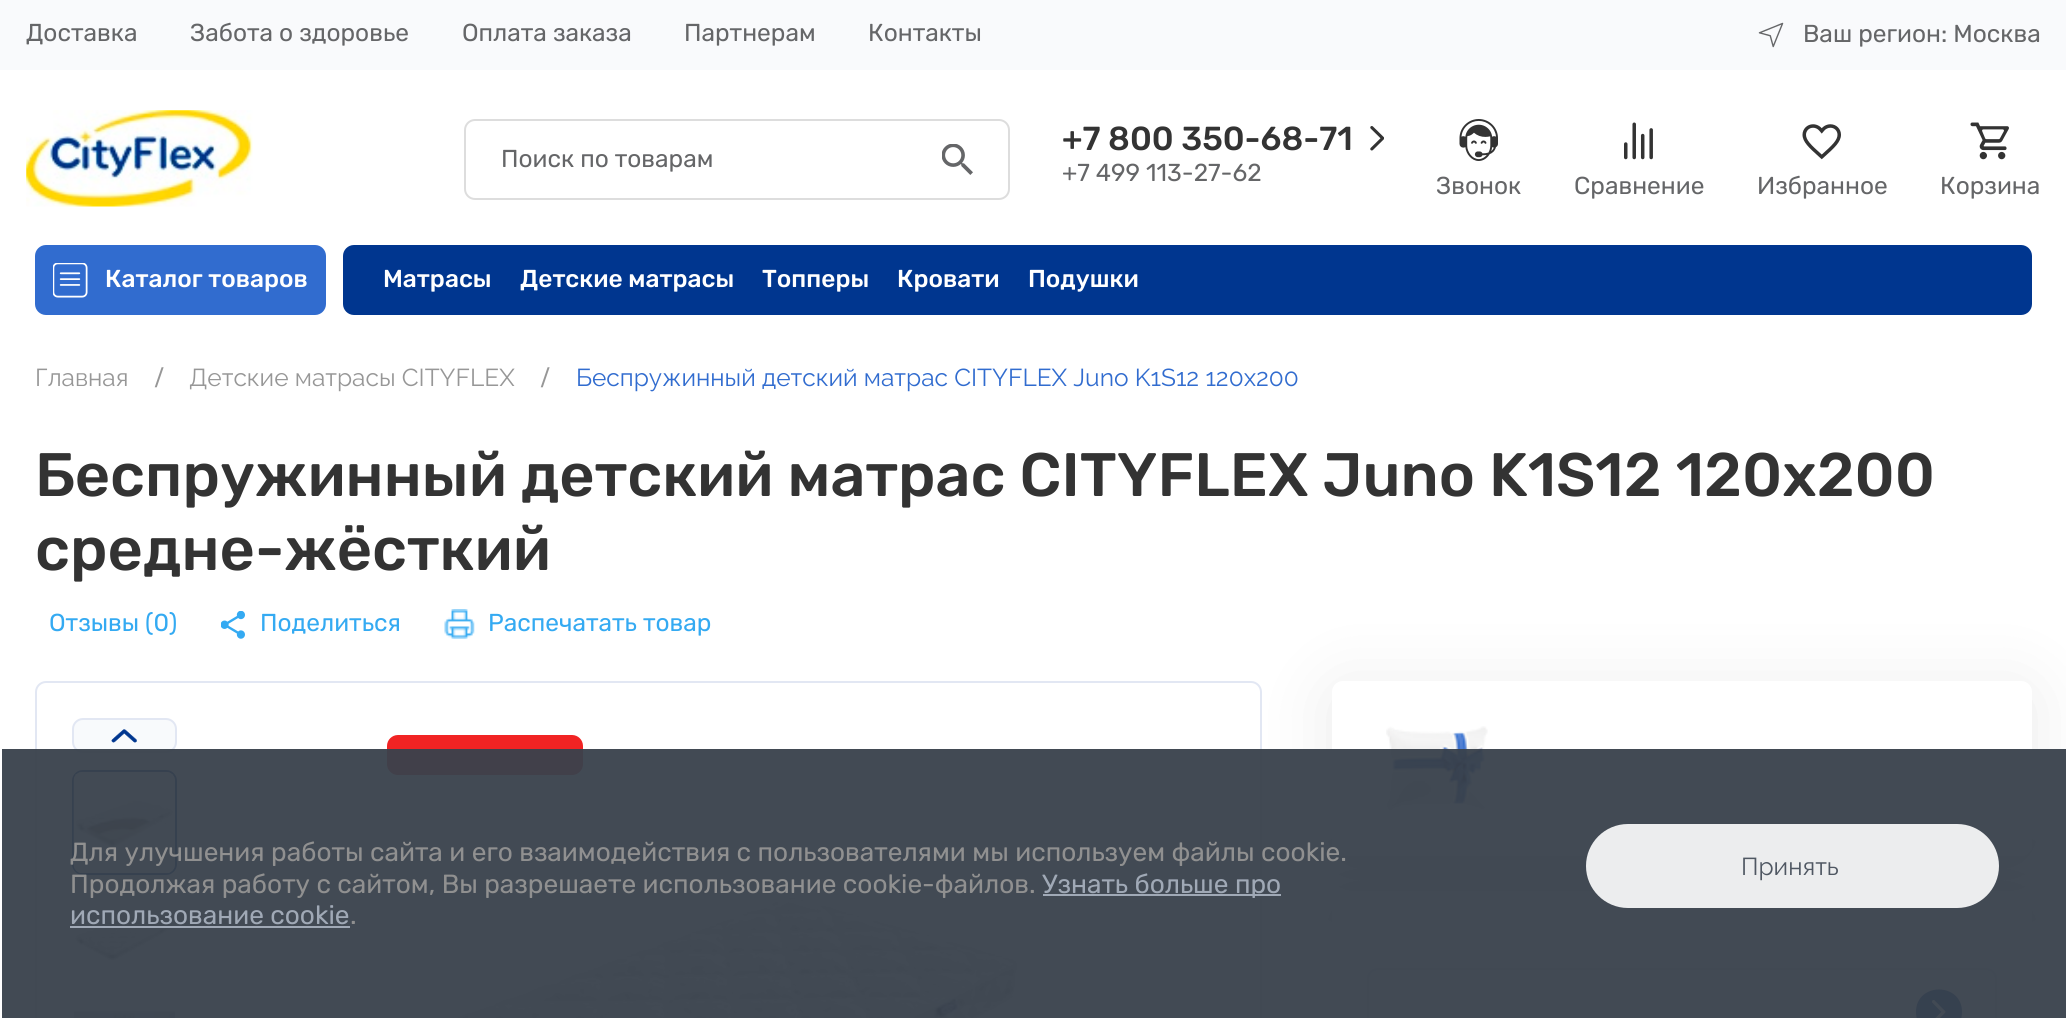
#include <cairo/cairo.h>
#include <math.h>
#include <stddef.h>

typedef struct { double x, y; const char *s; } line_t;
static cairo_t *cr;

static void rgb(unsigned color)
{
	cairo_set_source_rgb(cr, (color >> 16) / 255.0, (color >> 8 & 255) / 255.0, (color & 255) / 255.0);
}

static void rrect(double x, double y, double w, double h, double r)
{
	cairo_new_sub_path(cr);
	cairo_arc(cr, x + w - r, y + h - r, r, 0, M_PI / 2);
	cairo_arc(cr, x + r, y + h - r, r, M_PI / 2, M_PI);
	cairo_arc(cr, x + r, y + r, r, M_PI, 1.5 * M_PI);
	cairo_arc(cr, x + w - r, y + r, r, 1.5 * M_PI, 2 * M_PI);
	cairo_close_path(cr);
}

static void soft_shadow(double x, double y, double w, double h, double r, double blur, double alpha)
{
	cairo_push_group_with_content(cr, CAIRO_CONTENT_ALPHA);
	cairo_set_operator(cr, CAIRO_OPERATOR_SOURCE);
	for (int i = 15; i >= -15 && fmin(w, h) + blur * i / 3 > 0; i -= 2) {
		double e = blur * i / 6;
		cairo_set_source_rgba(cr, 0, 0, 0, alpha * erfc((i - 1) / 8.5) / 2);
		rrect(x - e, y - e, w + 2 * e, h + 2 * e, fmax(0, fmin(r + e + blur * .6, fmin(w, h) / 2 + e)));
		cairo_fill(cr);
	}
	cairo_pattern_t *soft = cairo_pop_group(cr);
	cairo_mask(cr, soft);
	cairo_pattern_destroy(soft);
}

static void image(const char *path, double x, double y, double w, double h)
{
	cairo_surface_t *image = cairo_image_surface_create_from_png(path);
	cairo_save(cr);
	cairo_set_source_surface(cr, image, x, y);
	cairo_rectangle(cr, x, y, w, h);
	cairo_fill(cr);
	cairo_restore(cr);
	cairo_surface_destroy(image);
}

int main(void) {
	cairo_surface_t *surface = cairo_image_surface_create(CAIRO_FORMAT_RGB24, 2066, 1018);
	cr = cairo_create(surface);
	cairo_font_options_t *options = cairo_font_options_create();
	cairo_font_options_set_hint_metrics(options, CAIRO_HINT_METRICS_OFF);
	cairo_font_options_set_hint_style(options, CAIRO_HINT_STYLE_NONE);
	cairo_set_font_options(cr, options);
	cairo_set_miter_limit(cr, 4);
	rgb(0xffffff);
	cairo_paint(cr);
	rgb(0xf9fafc);
	cairo_rectangle(cr, 0, 0, 2066, 70);
	cairo_fill(cr);
	image("img/1.png", 1758, 22, 26, 26);
	image("img/2.png", 26, 110, 227, 97);
	rrect(465, 120, 544, 79, 10);
	rgb(0xdddddd);
	cairo_stroke(cr);
	image("img/3.png", 942, 144, 31, 31);
	image("img/4.png", 1370, 126, 14, 25);
	image("img/5.png", 1459, 119, 39, 42);
	image("img/6.png", 1624, 122, 29, 38);
	image("img/7.png", 1802, 124, 39, 36);
	image("img/8.png", 1970, 122, 39, 38);
	rgb(0x316ccf);
	rrect(35, 245, 291, 70, 11);
	cairo_fill(cr);
	image("img/9.png", 53, 263, 35, 35);
	rgb(0x00368f);
	rrect(343, 245, 1689, 70, 11);
	cairo_fill(cr);
	rrect(36, 682, 1225, 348, 10);
	rgb(0xe2e7f3);
	cairo_stroke(cr);
	rgb(0xf8fafc);
	rrect(73, 719, 103, 33, 10);
	cairo_fill_preserve(cr);
	rgb(0xe2e7f3);
	cairo_stroke(cr);
	image("img/10.png", 111, 729, 26, 14);
	rrect(73, 771, 103, 103, 10);
	rgb(0x00368f);
	cairo_stroke(cr);
	image("img/11.png", 73, 771, 102, 103);
	image("img/12.png", 74, 913, 100, 52);
	image("img/13.png", 74, 1010, 101, 8);
	rgb(0xf12323);
	rrect(387, 735, 196, 40, 11);
	cairo_fill(cr);
	image("img/14.png", 453, 897, 565, 121);
	rgb(0x333333);
	soft_shadow(1332, 688, 700, 175, 11, 35, 0.1);
	soft_shadow(1332, 898, 700, 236, 11, 35, 0.1);
	rgb(0xffffff);
	rrect(1332, 681, 700, 175, 11);
	cairo_fill(cr);
	image("img/15.png", 1386, 726, 102, 85);
	rrect(1332, 891, 700, 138, 11);
	cairo_fill(cr);
	rgb(0x313131);
	soft_shadow(1367, 977, 630, 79, 11, 9, 0.08);
	rgb(0xf9fafc);
	rrect(1368, 969, 628, 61, 10);
	cairo_fill_preserve(cr);
	rgb(0xe2e7f3);
	cairo_stroke(cr);
	rgb(0x00368f);
	cairo_new_path(cr);
	cairo_move_to(cr, 1916, 1012);
	cairo_curve_to(cr, 1916, 982, 1962, 982, 1962, 1012);
	cairo_curve_to(cr, 1962, 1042, 1916, 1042, 1916, 1012);
	cairo_close_path(cr);
	cairo_fill(cr);
	image("img/16.png", 1932, 999, 14, 19);
	image("img/17.png", 221, 611, 24, 28);
	image("img/18.png", 444, 609, 31, 30);
	cairo_set_source_rgba(cr, 0.224, 0.255, 0.298, 0.95);
	cairo_rectangle(cr, 2, 749, 2064, 269);
	cairo_fill(cr);
	rgb(0xa0a9b6);
	cairo_rectangle(cr, 1043, 894, 238, 2);
	cairo_fill(cr);
	cairo_rectangle(cr, 70, 926, 280, 2);
	cairo_fill(cr);
	rgb(0xecedee);
	rrect(1586, 824, 413, 84, 42);
	cairo_fill(cr);
	cairo_select_font_face(cr, "Rubik", CAIRO_FONT_SLANT_NORMAL, CAIRO_FONT_WEIGHT_NORMAL);
	cairo_set_font_size(cr, 24.5);
	rgb(0x656668);
	{
		static const line_t items[] = {
			{26, 41, "Доставка"},
			{190, 41, "Забота о здоровье"},
			{462, 41, "Оплата заказа"},
			{684, 41, "Партнерам"},
			{868, 41, "Контакты"},
			{1803, 42, "Ваш регион: Москва"},
			{501, 167, "Поиск по товарам"},
		};
		for (size_t i = 0; i < sizeof items / sizeof *items; i++) {
			cairo_move_to(cr, items[i].x, items[i].y);
			cairo_show_text(cr, items[i].s);
		}
	}
	cairo_select_font_face(cr, "Rubik Medium", CAIRO_FONT_SLANT_NORMAL, CAIRO_FONT_WEIGHT_NORMAL);
	cairo_set_font_size(cr, 33.25);
	rgb(0x333333);
	cairo_move_to(cr, 1062, 150);
	cairo_show_text(cr, "+7 800 350-68-71");
	cairo_select_font_face(cr, "Rubik", CAIRO_FONT_SLANT_NORMAL, CAIRO_FONT_WEIGHT_NORMAL);
	cairo_set_font_size(cr, 24.5);
	rgb(0x656668);
	{
		static const line_t items[] = {
			{1062, 181, "+7 499 113-27-62"},
			{1436, 194, "Звонок"},
			{1574, 194, "Сравнение"},
			{1757, 194, "Избранное"},
			{1940, 194, "Корзина"},
		};
		for (size_t i = 0; i < sizeof items / sizeof *items; i++) {
			cairo_move_to(cr, items[i].x, items[i].y);
			cairo_show_text(cr, items[i].s);
		}
	}
	cairo_select_font_face(cr, "Rubik Medium", CAIRO_FONT_SLANT_NORMAL, CAIRO_FONT_WEIGHT_NORMAL);
	rgb(0xffffff);
	{
		static const line_t items[] = {
			{105, 287, "Каталог товаров"},
			{383, 287, "Матрасы"},
			{520, 287, "Детские матрасы"},
			{762, 287, "Топперы"},
			{897, 287, "Кровати"},
			{1028, 287, "Подушки"},
		};
		for (size_t i = 0; i < sizeof items / sizeof *items; i++) {
			cairo_move_to(cr, items[i].x, items[i].y);
			cairo_show_text(cr, items[i].s);
		}
	}
	cairo_select_font_face(cr, "Raleway", CAIRO_FONT_SLANT_NORMAL, CAIRO_FONT_WEIGHT_NORMAL);
	rgb(0x979797);
	cairo_move_to(cr, 35, 386);
	cairo_show_text(cr, "Главная");
	cairo_select_font_face(cr, "Liberation Serif", CAIRO_FONT_SLANT_NORMAL, CAIRO_FONT_WEIGHT_BOLD);
	cairo_set_font_size(cr, 30);
	cairo_move_to(cr, 155, 387);
	cairo_show_text(cr, "/");
	cairo_select_font_face(cr, "Raleway", CAIRO_FONT_SLANT_NORMAL, CAIRO_FONT_WEIGHT_NORMAL);
	cairo_set_font_size(cr, 24.5);
	cairo_move_to(cr, 189, 386);
	cairo_show_text(cr, "Детские матрасы CITYFLEX");
	cairo_select_font_face(cr, "Liberation Serif", CAIRO_FONT_SLANT_NORMAL, CAIRO_FONT_WEIGHT_BOLD);
	cairo_set_font_size(cr, 30);
	cairo_move_to(cr, 541, 387);
	cairo_show_text(cr, "/");
	cairo_select_font_face(cr, "Raleway", CAIRO_FONT_SLANT_NORMAL, CAIRO_FONT_WEIGHT_NORMAL);
	cairo_set_font_size(cr, 24.5);
	rgb(0x316ccf);
	cairo_move_to(cr, 576, 386);
	cairo_show_text(cr, "Беспружинный детский матрас CITYFLEX Juno K1S12 120х200");
	cairo_select_font_face(cr, "Rubik Medium", CAIRO_FONT_SLANT_NORMAL, CAIRO_FONT_WEIGHT_NORMAL);
	cairo_set_font_size(cr, 61.25);
	rgb(0x333333);
	cairo_move_to(cr, 35, 496);
	cairo_show_text(cr, "Беспружинный детский матрас CITYFLEX Juno K1S12 120х200");
	cairo_move_to(cr, 35, 570);
	cairo_show_text(cr, "средне-жёсткий");
	cairo_select_font_face(cr, "Rubik", CAIRO_FONT_SLANT_NORMAL, CAIRO_FONT_WEIGHT_NORMAL);
	cairo_set_font_size(cr, 24.5);
	rgb(0x34aaf2);
	{
		static const line_t items[] = {
			{49, 631, "Отзывы (0)"},
			{260, 631, "Поделиться"},
			{488, 631, "Распечатать товар"},
		};
		for (size_t i = 0; i < sizeof items / sizeof *items; i++) {
			cairo_move_to(cr, items[i].x, items[i].y);
			cairo_show_text(cr, items[i].s);
		}
	}
	cairo_set_font_size(cr, 26.25);
	rgb(0x909090);
	cairo_move_to(cr, 70, 861);
	cairo_show_text(cr, "Для улучшения работы сайта и его взаимодействия с пользователями мы используем файлы cookie.");
	cairo_move_to(cr, 70, 893);
	cairo_show_text(cr, "Продолжая работу с сайтом, Вы разрешаете использование cookie-файлов.");
	rgb(0xa0a9b6);
	cairo_move_to(cr, 1042, 893);
	cairo_show_text(cr, "Узнать больше про");
	cairo_move_to(cr, 70, 924);
	cairo_show_text(cr, "использование cookie");
	rgb(0x909090);
	cairo_move_to(cr, 350, 924);
	cairo_show_text(cr, ".");
	cairo_select_font_face(cr, "Raleway", CAIRO_FONT_SLANT_NORMAL, CAIRO_FONT_WEIGHT_NORMAL);
	cairo_set_font_size(cr, 24.5);
	rgb(0x4f5762);
	cairo_move_to(cr, 1741, 875);
	cairo_show_text(cr, "Принять");
	cairo_surface_write_to_png(surface, "page.png");
	cairo_font_options_destroy(options);
	cairo_destroy(cr);
	cairo_surface_destroy(surface);
	return 0;
}
